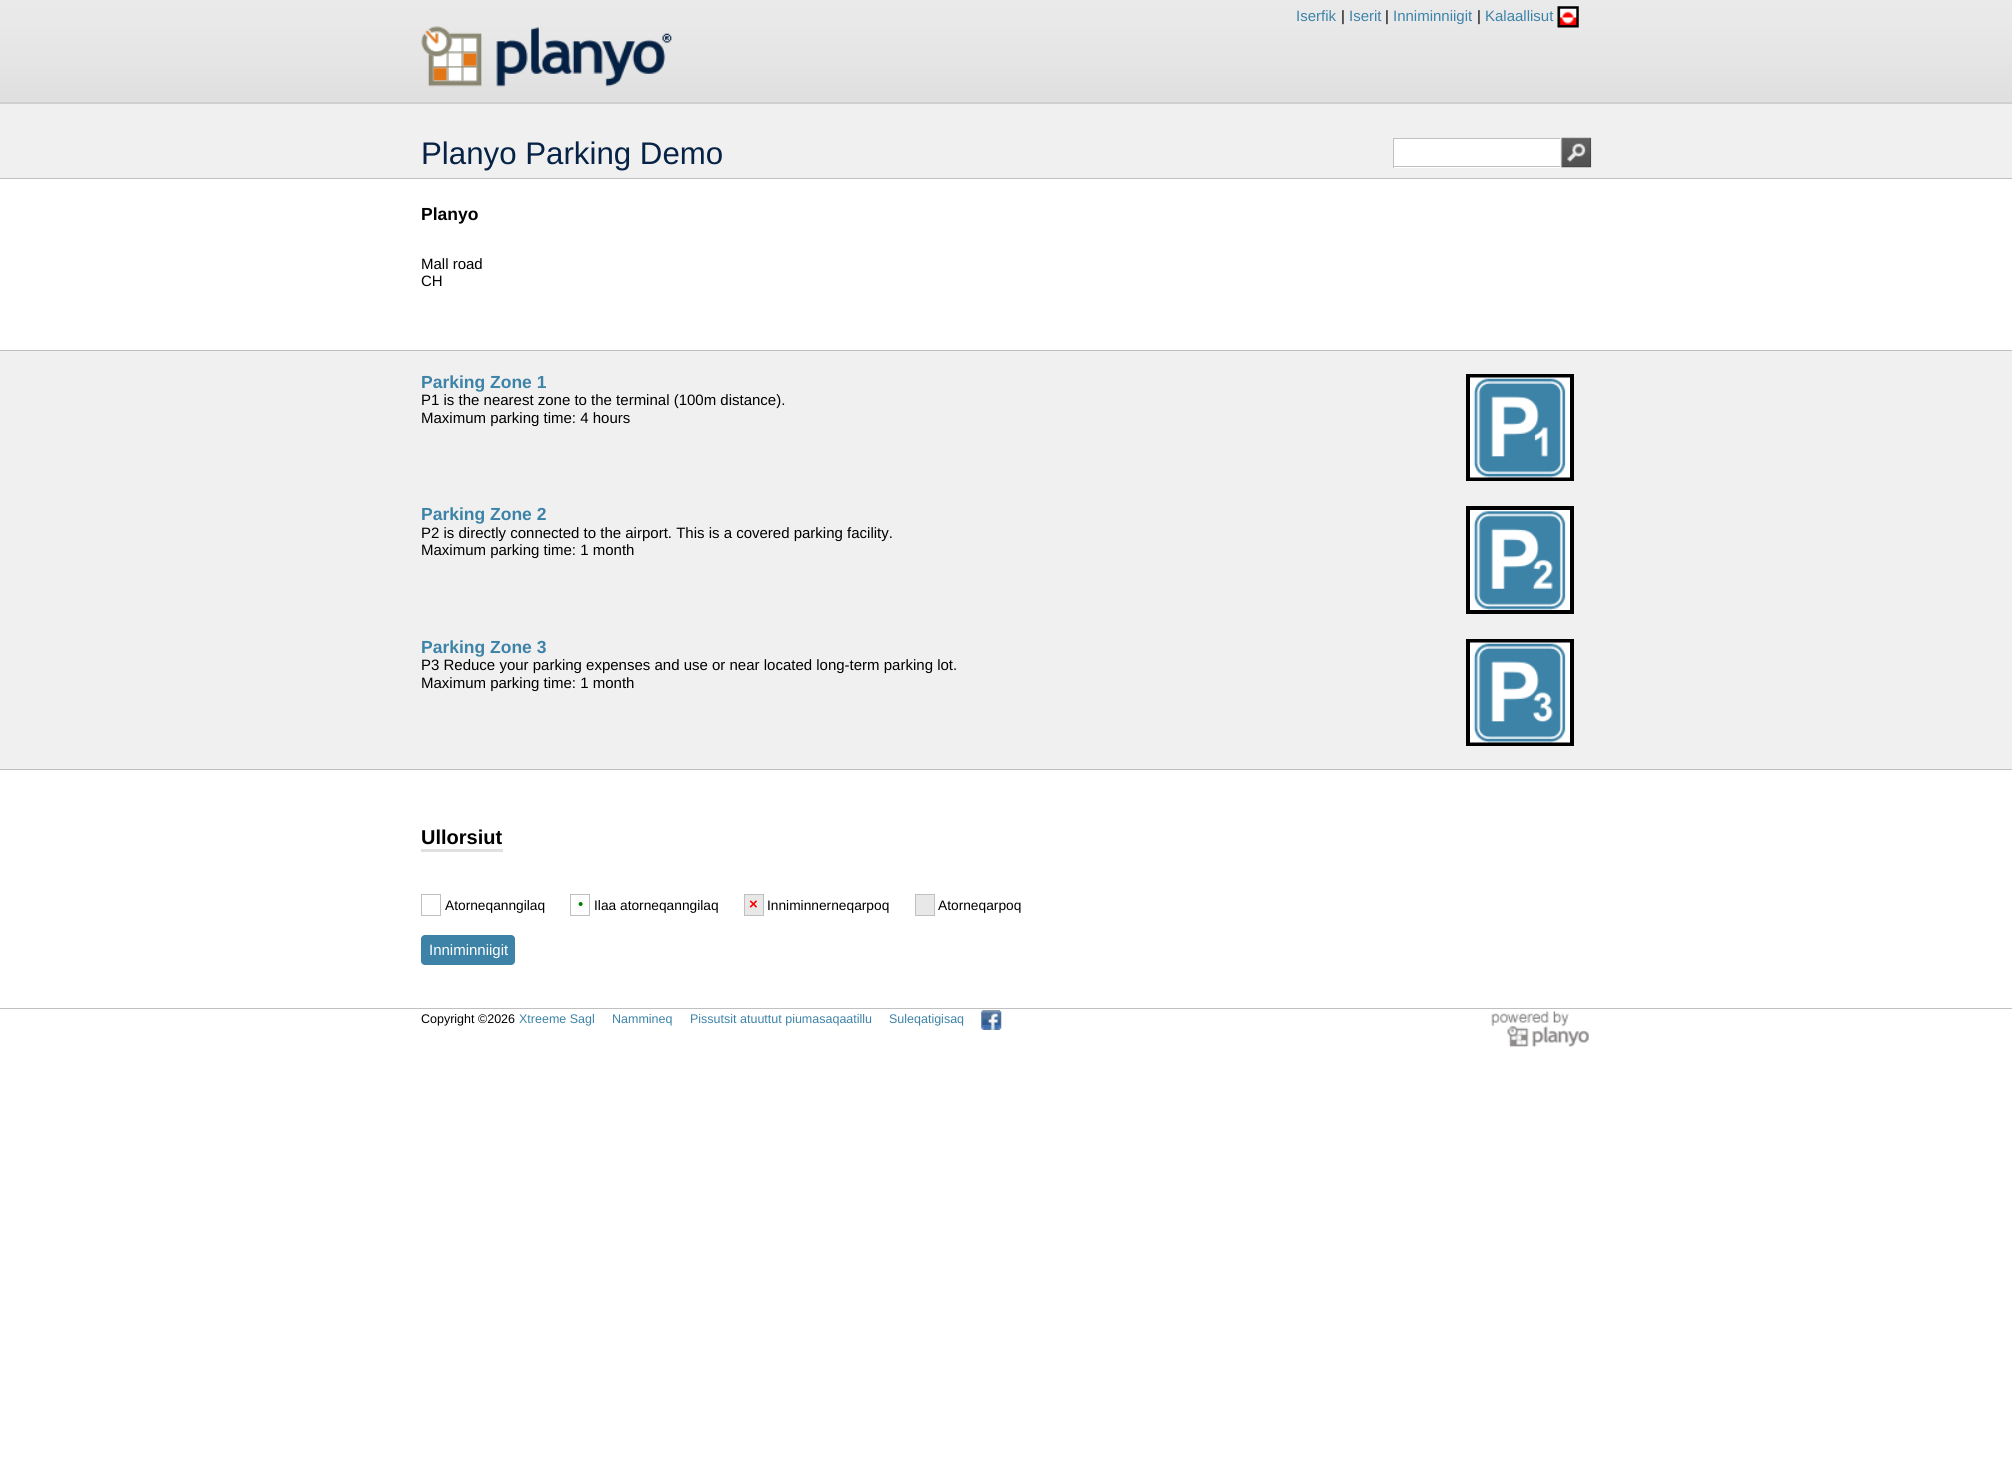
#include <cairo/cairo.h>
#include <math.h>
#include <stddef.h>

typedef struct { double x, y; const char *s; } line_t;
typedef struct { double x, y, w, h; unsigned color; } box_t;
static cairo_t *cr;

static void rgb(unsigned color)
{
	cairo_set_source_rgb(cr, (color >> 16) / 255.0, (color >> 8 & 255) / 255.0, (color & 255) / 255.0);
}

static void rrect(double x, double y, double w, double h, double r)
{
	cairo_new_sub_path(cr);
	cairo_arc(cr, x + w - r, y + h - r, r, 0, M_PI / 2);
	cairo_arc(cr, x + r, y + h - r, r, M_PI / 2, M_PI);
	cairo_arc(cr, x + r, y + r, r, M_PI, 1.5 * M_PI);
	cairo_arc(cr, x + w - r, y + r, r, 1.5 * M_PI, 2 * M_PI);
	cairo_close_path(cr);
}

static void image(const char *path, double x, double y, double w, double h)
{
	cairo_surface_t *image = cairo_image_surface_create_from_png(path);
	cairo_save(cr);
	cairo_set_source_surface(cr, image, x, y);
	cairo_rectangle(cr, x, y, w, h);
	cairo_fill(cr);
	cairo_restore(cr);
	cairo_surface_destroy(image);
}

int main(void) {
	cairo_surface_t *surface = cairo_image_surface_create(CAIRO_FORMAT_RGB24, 2012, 1464);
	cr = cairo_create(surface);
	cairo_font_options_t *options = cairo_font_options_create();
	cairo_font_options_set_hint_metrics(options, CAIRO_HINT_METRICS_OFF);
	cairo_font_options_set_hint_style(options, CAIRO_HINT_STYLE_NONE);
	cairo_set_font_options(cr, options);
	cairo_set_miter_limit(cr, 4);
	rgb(0xffffff);
	cairo_paint(cr);
	image("img/1.png", 0, 0, 2012, 104);
	image("img/2.png", 1557, 6, 22, 22);
	image("img/3.png", 421, 26, 251, 61);
	{
		static const box_t items[] = {
			{0, 104, 2012, 74, 0xf0f0f0},
			{0, 178, 2012, 1, 0xc0c0c0},
			{1394, 139, 166, 29, 0xffffff},
			{1393, 138, 167, 1, 0xc0c0c0},
			{1393, 166, 167, 1, 0xc0c0c0},
			{1393, 138, 1, 30, 0xc0c0c0},
		};
		for (size_t i = 0; i < sizeof items / sizeof *items; i++) {
			rgb(items[i].color);
			cairo_rectangle(cr, items[i].x, items[i].y, items[i].w, items[i].h);
			cairo_fill(cr);
		}
	}
	image("img/4.png", 1561, 137, 31, 31);
	{
		static const box_t items[] = {
			{0, 351, 2012, 418, 0xf0f0f0},
			{0, 350, 2012, 1, 0xc0c0c0},
			{0, 769, 2012, 1, 0xc0c0c0},
			{1466, 374, 108, 107, 0x000000},
		};
		for (size_t i = 0; i < sizeof items / sizeof *items; i++) {
			rgb(items[i].color);
			cairo_rectangle(cr, items[i].x, items[i].y, items[i].w, items[i].h);
			cairo_fill(cr);
		}
	}
	image("img/5.png", 1470, 377, 100, 101);
	cairo_rectangle(cr, 1466, 506, 108, 108);
	cairo_fill(cr);
	image("img/6.png", 1470, 510, 100, 100);
	cairo_rectangle(cr, 1466, 639, 108, 107);
	cairo_fill(cr);
	image("img/7.png", 1470, 642, 100, 101);
	rgb(0xe0e0e0);
	cairo_rectangle(cr, 421, 849, 82, 3);
	cairo_fill(cr);
	cairo_rectangle(cr, 421.5, 894.5, 19, 21);
	rgb(0xc0c0c0);
	cairo_set_line_width(cr, 1);
	cairo_stroke(cr);
	cairo_rectangle(cr, 570.5, 894.5, 19, 21);
	cairo_stroke(cr);
	rgb(0xe8e8e8);
	cairo_rectangle(cr, 744.5, 894.5, 19, 21);
	cairo_fill_preserve(cr);
	rgb(0xc0c0c0);
	cairo_stroke(cr);
	rgb(0xe8e8e8);
	cairo_rectangle(cr, 915.5, 894.5, 19, 21);
	cairo_fill_preserve(cr);
	rgb(0xc0c0c0);
	cairo_stroke(cr);
	rgb(0x3d83a8);
	rrect(421, 935, 94, 30, 4);
	cairo_fill(cr);
	rgb(0xc0c0c0);
	cairo_rectangle(cr, 0, 1008, 2012, 1);
	cairo_fill(cr);
	image("img/8.png", 981, 1010, 21, 20);
	image("img/9.png", 1491, 1011, 98, 36);
	cairo_select_font_face(cr, "Liberation Sans", CAIRO_FONT_SLANT_NORMAL, CAIRO_FONT_WEIGHT_NORMAL);
	cairo_set_font_size(cr, 15);
	rgb(0x3d83a8);
	cairo_move_to(cr, 1296, 21);
	cairo_show_text(cr, "Iserfik");
	rgb(0x000000);
	cairo_move_to(cr, 1341, 21);
	cairo_show_text(cr, "|");
	rgb(0x3d83a8);
	cairo_move_to(cr, 1349, 21);
	cairo_show_text(cr, "Iserit");
	rgb(0x000000);
	cairo_move_to(cr, 1385, 21);
	cairo_show_text(cr, "|");
	rgb(0x3d83a8);
	cairo_move_to(cr, 1393, 21);
	cairo_show_text(cr, "Inniminniigit");
	rgb(0x000000);
	cairo_move_to(cr, 1477, 21);
	cairo_show_text(cr, "|");
	rgb(0x3d83a8);
	cairo_move_to(cr, 1485, 21);
	cairo_show_text(cr, "Kalaallisut");
	cairo_set_font_size(cr, 31.25);
	rgb(0x062245);
	cairo_move_to(cr, 421, 164);
	cairo_show_text(cr, "Planyo Parking Demo");
	cairo_select_font_face(cr, "Liberation Sans", CAIRO_FONT_SLANT_NORMAL, CAIRO_FONT_WEIGHT_BOLD);
	cairo_set_font_size(cr, 17.5);
	rgb(0x000000);
	cairo_move_to(cr, 421, 220);
	cairo_show_text(cr, "Planyo");
	cairo_select_font_face(cr, "Liberation Sans", CAIRO_FONT_SLANT_NORMAL, CAIRO_FONT_WEIGHT_NORMAL);
	cairo_set_font_size(cr, 15);
	cairo_move_to(cr, 421, 269);
	cairo_show_text(cr, "Mall road");
	cairo_move_to(cr, 421, 286);
	cairo_show_text(cr, "CH");
	cairo_select_font_face(cr, "Liberation Sans", CAIRO_FONT_SLANT_NORMAL, CAIRO_FONT_WEIGHT_BOLD);
	cairo_set_font_size(cr, 17.5);
	rgb(0x3d83a8);
	cairo_move_to(cr, 421, 388);
	cairo_show_text(cr, "Parking Zone 1");
	cairo_select_font_face(cr, "Liberation Sans", CAIRO_FONT_SLANT_NORMAL, CAIRO_FONT_WEIGHT_NORMAL);
	cairo_set_font_size(cr, 15);
	rgb(0x000000);
	cairo_move_to(cr, 421, 405);
	cairo_show_text(cr, "P1 is the nearest zone to the terminal (100m distance).");
	cairo_move_to(cr, 421, 423);
	cairo_show_text(cr, "Maximum parking time: 4 hours");
	cairo_select_font_face(cr, "Liberation Sans", CAIRO_FONT_SLANT_NORMAL, CAIRO_FONT_WEIGHT_BOLD);
	cairo_set_font_size(cr, 17.5);
	rgb(0x3d83a8);
	cairo_move_to(cr, 421, 520);
	cairo_show_text(cr, "Parking Zone 2");
	cairo_select_font_face(cr, "Liberation Sans", CAIRO_FONT_SLANT_NORMAL, CAIRO_FONT_WEIGHT_NORMAL);
	cairo_set_font_size(cr, 15);
	rgb(0x000000);
	cairo_move_to(cr, 421, 538);
	cairo_show_text(cr, "P2 is directly connected to the airport. This is a covered parking facility.");
	cairo_move_to(cr, 421, 555);
	cairo_show_text(cr, "Maximum parking time: 1 month");
	cairo_select_font_face(cr, "Liberation Sans", CAIRO_FONT_SLANT_NORMAL, CAIRO_FONT_WEIGHT_BOLD);
	cairo_set_font_size(cr, 17.5);
	rgb(0x3d83a8);
	cairo_move_to(cr, 421, 653);
	cairo_show_text(cr, "Parking Zone 3");
	cairo_select_font_face(cr, "Liberation Sans", CAIRO_FONT_SLANT_NORMAL, CAIRO_FONT_WEIGHT_NORMAL);
	cairo_set_font_size(cr, 15);
	rgb(0x000000);
	cairo_move_to(cr, 421, 670);
	cairo_show_text(cr, "P3 Reduce your parking expenses and use or near located long-term parking lot.");
	cairo_move_to(cr, 421, 688);
	cairo_show_text(cr, "Maximum parking time: 1 month");
	cairo_select_font_face(cr, "Liberation Sans", CAIRO_FONT_SLANT_NORMAL, CAIRO_FONT_WEIGHT_BOLD);
	cairo_set_font_size(cr, 20);
	cairo_move_to(cr, 421, 844);
	cairo_show_text(cr, "Ullorsiut");
	cairo_select_font_face(cr, "Liberation Sans", CAIRO_FONT_SLANT_NORMAL, CAIRO_FONT_WEIGHT_NORMAL);
	cairo_set_font_size(cr, 13.75);
	cairo_move_to(cr, 445, 910);
	cairo_show_text(cr, "Atorneqanngilaq");
	cairo_set_font_size(cr, 15);
	rgb(0x008000);
	cairo_move_to(cr, 578, 909);
	cairo_show_text(cr, "•");
	cairo_set_font_size(cr, 13.75);
	rgb(0x000000);
	cairo_move_to(cr, 594, 910);
	cairo_show_text(cr, "Ilaa atorneqanngilaq");
	cairo_select_font_face(cr, "Liberation Sans", CAIRO_FONT_SLANT_NORMAL, CAIRO_FONT_WEIGHT_BOLD);
	cairo_set_font_size(cr, 15);
	rgb(0xff0000);
	cairo_move_to(cr, 749, 909);
	cairo_show_text(cr, "×");
	cairo_select_font_face(cr, "Liberation Sans", CAIRO_FONT_SLANT_NORMAL, CAIRO_FONT_WEIGHT_NORMAL);
	cairo_set_font_size(cr, 13.75);
	rgb(0x000000);
	cairo_move_to(cr, 767, 910);
	cairo_show_text(cr, "Inniminnerneqarpoq");
	cairo_move_to(cr, 938, 910);
	cairo_show_text(cr, "Atorneqarpoq");
	cairo_set_font_size(cr, 15);
	rgb(0xffffff);
	cairo_move_to(cr, 429, 955);
	cairo_show_text(cr, "Inniminniigit");
	cairo_set_font_size(cr, 12.5);
	rgb(0x000000);
	cairo_move_to(cr, 421, 1023);
	cairo_show_text(cr, "Copyright ©2026");
	rgb(0x3d83a8);
	{
		static const line_t items[] = {
			{519, 1023, "Xtreeme Sagl"},
			{612, 1023, "Nammineq"},
			{690, 1023, "Pissutsit atuuttut piumasaqaatillu"},
			{889, 1023, "Suleqatigisaq"},
		};
		for (size_t i = 0; i < sizeof items / sizeof *items; i++) {
			cairo_move_to(cr, items[i].x, items[i].y);
			cairo_show_text(cr, items[i].s);
		}
	}
	cairo_surface_write_to_png(surface, "page.png");
	cairo_font_options_destroy(options);
	cairo_destroy(cr);
	cairo_surface_destroy(surface);
	return 0;
}
